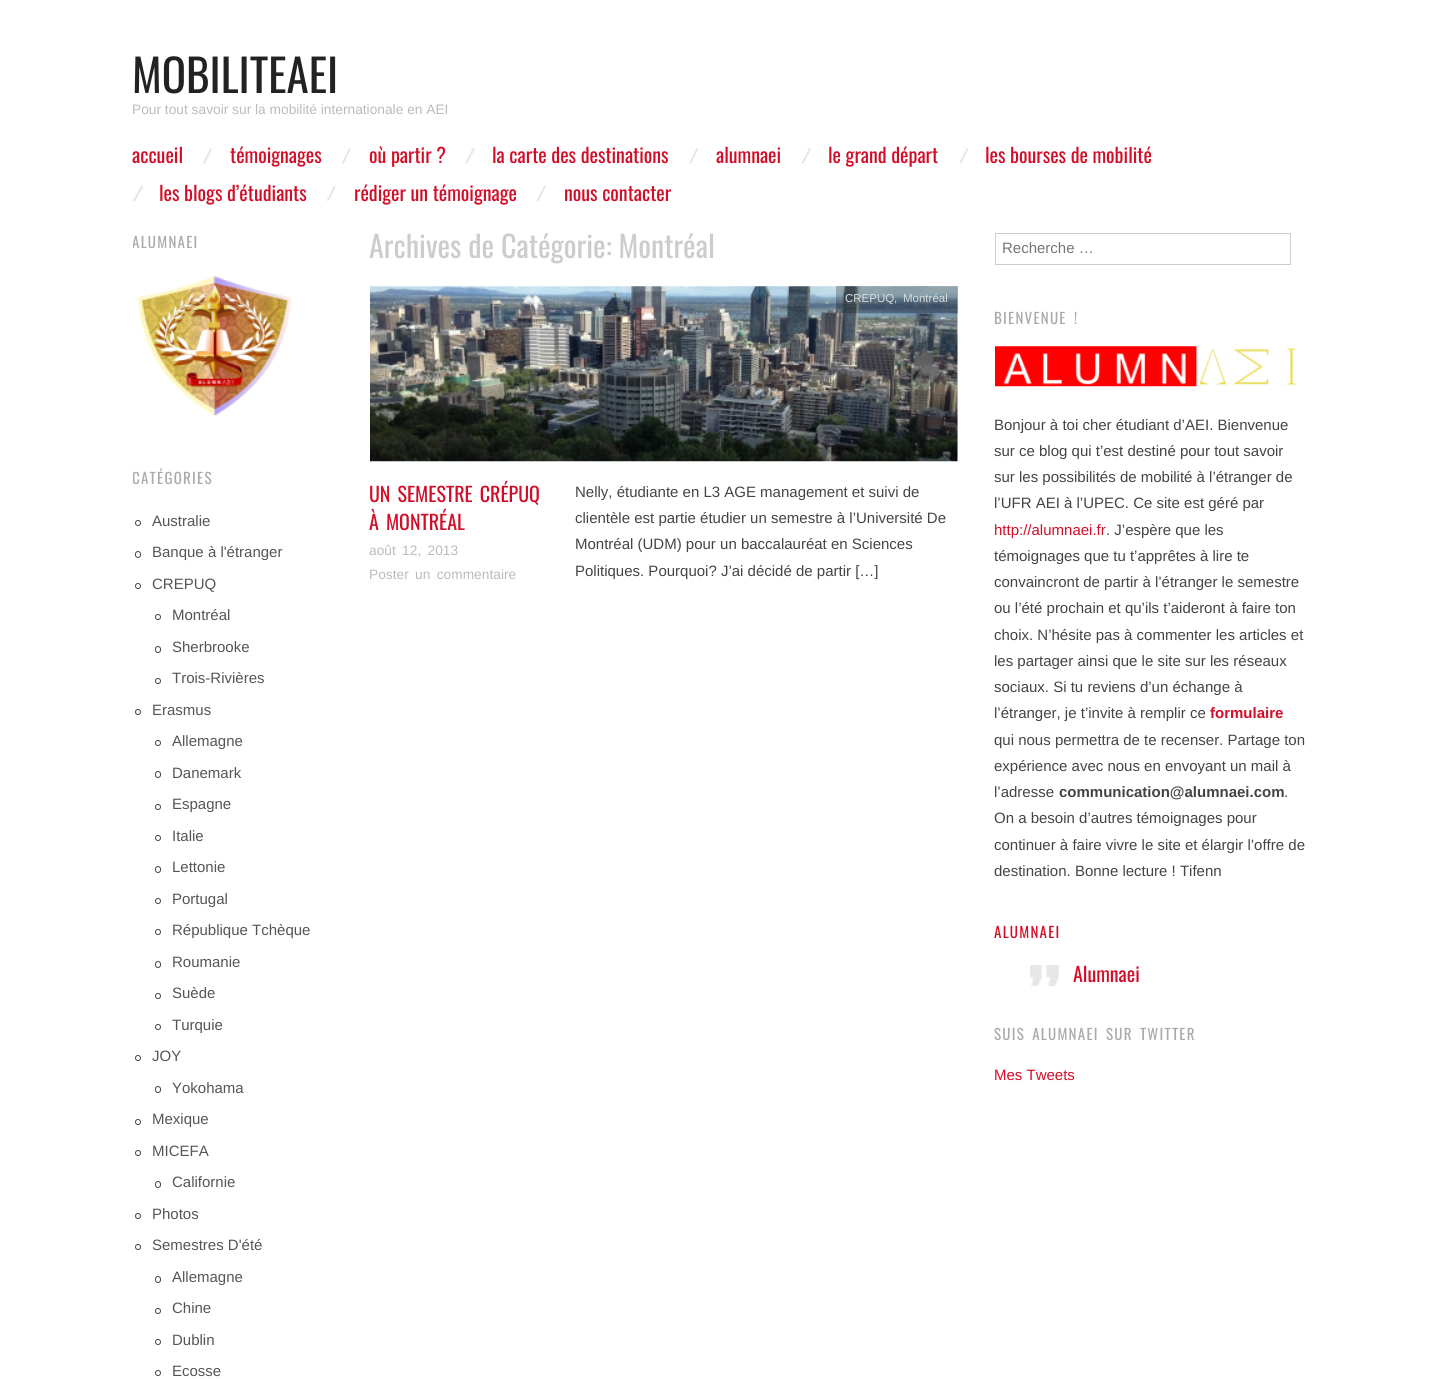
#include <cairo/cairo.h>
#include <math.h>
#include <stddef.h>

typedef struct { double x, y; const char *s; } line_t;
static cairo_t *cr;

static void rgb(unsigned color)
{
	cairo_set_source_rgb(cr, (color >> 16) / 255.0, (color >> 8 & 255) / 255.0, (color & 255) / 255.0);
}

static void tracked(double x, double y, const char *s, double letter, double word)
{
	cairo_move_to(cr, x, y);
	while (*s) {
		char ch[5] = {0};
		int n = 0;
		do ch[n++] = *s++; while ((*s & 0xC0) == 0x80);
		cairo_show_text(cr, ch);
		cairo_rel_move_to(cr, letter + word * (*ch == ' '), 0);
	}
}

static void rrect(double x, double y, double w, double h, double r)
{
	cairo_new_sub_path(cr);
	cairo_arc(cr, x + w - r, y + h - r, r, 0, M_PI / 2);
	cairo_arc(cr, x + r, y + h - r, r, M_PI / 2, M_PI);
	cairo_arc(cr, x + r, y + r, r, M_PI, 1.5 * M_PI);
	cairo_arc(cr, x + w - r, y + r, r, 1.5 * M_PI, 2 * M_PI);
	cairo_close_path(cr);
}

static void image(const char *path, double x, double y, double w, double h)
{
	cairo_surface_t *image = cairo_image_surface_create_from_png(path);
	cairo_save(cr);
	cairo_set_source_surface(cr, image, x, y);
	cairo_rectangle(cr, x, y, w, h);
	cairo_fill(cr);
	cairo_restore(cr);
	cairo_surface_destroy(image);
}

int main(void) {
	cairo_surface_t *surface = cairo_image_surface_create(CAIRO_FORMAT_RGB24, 1438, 1379);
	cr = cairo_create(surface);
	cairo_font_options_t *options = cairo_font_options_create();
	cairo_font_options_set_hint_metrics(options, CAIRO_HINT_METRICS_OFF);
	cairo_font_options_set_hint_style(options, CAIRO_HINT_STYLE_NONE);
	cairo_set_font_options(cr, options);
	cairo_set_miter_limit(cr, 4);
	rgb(0xffffff);
	cairo_paint(cr);
	image("img/1.png", 203, 148, 9, 16);
	image("img/2.png", 341, 147, 10, 17);
	image("img/3.png", 465, 147, 10, 17);
	image("img/4.png", 689, 148, 10, 16);
	image("img/2.png", 801, 147, 10, 17);
	image("img/4.png", 959, 148, 10, 16);
	image("img/5.png", 132, 185, 12, 17);
	image("img/6.png", 326, 185, 10, 16);
	image("img/6.png", 536, 185, 10, 16);
	image("img/7.png", 137, 276, 155, 140);
	cairo_arc(cr, 138, 523, 2.5, 0, 2 * M_PI);
	rgb(0x444444);
	cairo_set_line_width(cr, 1);
	cairo_stroke(cr);
	rrect(135.5, 551.5, 5, 6, 2.5);
	cairo_stroke(cr);
	cairo_arc(cr, 138, 586, 2.5, 0, 2 * M_PI);
	cairo_stroke(cr);
	cairo_arc(cr, 158, 617, 2.5, 0, 2 * M_PI);
	cairo_stroke(cr);
	rrect(155.5, 646.5, 5, 6, 2.5);
	cairo_stroke(cr);
	cairo_arc(cr, 158, 681, 2.5, 0, 2 * M_PI);
	cairo_stroke(cr);
	cairo_arc(cr, 138, 712, 2.5, 0, 2 * M_PI);
	cairo_stroke(cr);
	cairo_arc(cr, 158, 743, 2.5, 0, 2 * M_PI);
	cairo_stroke(cr);
	rrect(155.5, 771.5, 5, 6, 2.5);
	cairo_stroke(cr);
	cairo_arc(cr, 158, 807, 2.5, 0, 2 * M_PI);
	cairo_stroke(cr);
	cairo_arc(cr, 158, 838, 2.5, 0, 2 * M_PI);
	cairo_stroke(cr);
	rrect(155.5, 866.5, 5, 6, 2.5);
	cairo_stroke(cr);
	cairo_arc(cr, 158, 901, 2.5, 0, 2 * M_PI);
	cairo_stroke(cr);
	cairo_arc(cr, 158, 932, 2.5, 0, 2 * M_PI);
	cairo_stroke(cr);
	rrect(155.5, 961.5, 5, 6, 2.5);
	cairo_stroke(cr);
	cairo_arc(cr, 158, 996, 2.5, 0, 2 * M_PI);
	cairo_stroke(cr);
	cairo_arc(cr, 158, 1027, 2.5, 0, 2 * M_PI);
	cairo_stroke(cr);
	cairo_arc(cr, 138, 1058, 2.5, 0, 2 * M_PI);
	cairo_stroke(cr);
	rrect(155.5, 1086.5, 5, 6, 2.5);
	cairo_stroke(cr);
	cairo_arc(cr, 138, 1122, 2.5, 0, 2 * M_PI);
	cairo_stroke(cr);
	cairo_arc(cr, 138, 1153, 2.5, 0, 2 * M_PI);
	cairo_stroke(cr);
	rrect(155.5, 1181.5, 5, 6, 2.5);
	cairo_stroke(cr);
	cairo_arc(cr, 138, 1216, 2.5, 0, 2 * M_PI);
	cairo_stroke(cr);
	cairo_arc(cr, 138, 1247, 2.5, 0, 2 * M_PI);
	cairo_stroke(cr);
	rrect(155.5, 1276.5, 5, 6, 2.5);
	cairo_stroke(cr);
	cairo_arc(cr, 158, 1311, 2.5, 0, 2 * M_PI);
	cairo_stroke(cr);
	cairo_arc(cr, 158, 1342, 2.5, 0, 2 * M_PI);
	cairo_stroke(cr);
	cairo_arc(cr, 158, 1373, 2.5, 0, 2 * M_PI);
	cairo_stroke(cr);
	image("img/8.png", 370, 286, 588, 176);
	cairo_set_source_rgba(cr, 0, 0, 0, 0.25);
	cairo_rectangle(cr, 836, 286, 122, 27);
	cairo_fill(cr);
	cairo_rectangle(cr, 995.5, 233.5, 295, 31);
	rgb(0xcccccc);
	cairo_stroke(cr);
	image("img/9.png", 995, 346, 302, 41);
	image("img/10.png", 1030, 965, 29, 21);
	cairo_select_font_face(cr, "Oswald", CAIRO_FONT_SLANT_NORMAL, CAIRO_FONT_WEIGHT_NORMAL);
	cairo_set_font_size(cr, 45);
	rgb(0x222222);
	cairo_move_to(cr, 132, 93);
	cairo_show_text(cr, "MOBILITEAEI");
	cairo_select_font_face(cr, "Liberation Sans", CAIRO_FONT_SLANT_NORMAL, CAIRO_FONT_WEIGHT_NORMAL);
	cairo_set_font_size(cr, 13.75);
	rgb(0xbbbbbb);
	cairo_move_to(cr, 132, 114);
	cairo_show_text(cr, "Pour tout savoir sur la mobilité internationale en AEI");
	cairo_select_font_face(cr, "Oswald", CAIRO_FONT_SLANT_NORMAL, CAIRO_FONT_WEIGHT_NORMAL);
	cairo_set_font_size(cr, 20);
	rgb(0xd30d27);
	{
		static const line_t items[] = {
			{132, 163, "accueil"},
			{230, 163, "témoignages"},
			{369, 163, "où partir ?"},
			{492, 163, "la carte des destinations"},
			{716, 163, "alumnaei"},
			{828, 163, "le grand départ"},
			{985, 163, "les bourses de mobilité"},
			{159, 201, "les blogs d’étudiants"},
			{354, 201, "rédiger un témoignage"},
			{564, 201, "nous contacter"},
		};
		for (size_t i = 0; i < sizeof items / sizeof *items; i++) {
			cairo_move_to(cr, items[i].x, items[i].y);
			cairo_show_text(cr, items[i].s);
		}
	}
	cairo_save(cr);
	cairo_rectangle(cr, 133, 233, 200, 197);
	cairo_clip(cr);
	cairo_set_font_size(cr, 15);
	rgb(0xaaaaaa);
	tracked(132, 248, "ALUMNAEI", 1.25, 0);
	cairo_restore(cr);
	cairo_save(cr);
	cairo_rectangle(cr, 133, 468, 200, 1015);
	cairo_clip(cr);
	cairo_set_font_size(cr, 15);
	rgb(0xaaaaaa);
	tracked(132, 484, "CATÉGORIES", 1.25, 0);
	cairo_restore(cr);
	cairo_select_font_face(cr, "Liberation Sans", CAIRO_FONT_SLANT_NORMAL, CAIRO_FONT_WEIGHT_NORMAL);
	cairo_set_font_size(cr, 15);
	rgb(0x555555);
	{
		static const line_t items[] = {
			{152, 526, "Australie"},
			{152, 557, "Banque à l'étranger"},
			{152, 589, "CREPUQ"},
			{172, 620, "Montréal"},
			{172, 652, "Sherbrooke"},
			{172, 683, "Trois-Rivières"},
			{152, 715, "Erasmus"},
			{172, 746, "Allemagne"},
			{172, 778, "Danemark"},
			{172, 809, "Espagne"},
			{172, 841, "Italie"},
			{172, 872, "Lettonie"},
			{172, 904, "Portugal"},
			{172, 935, "République Tchèque"},
			{172, 967, "Roumanie"},
			{172, 998, "Suède"},
			{172, 1030, "Turquie"},
			{152, 1061, "JOY"},
			{172, 1093, "Yokohama"},
			{152, 1124, "Mexique"},
			{152, 1156, "MICEFA"},
			{172, 1187, "Californie"},
			{152, 1219, "Photos"},
			{152, 1250, "Semestres D'été"},
			{172, 1282, "Allemagne"},
			{172, 1313, "Chine"},
			{172, 1345, "Dublin"},
			{172, 1376, "Ecosse"},
		};
		for (size_t i = 0; i < sizeof items / sizeof *items; i++) {
			cairo_move_to(cr, items[i].x, items[i].y);
			cairo_show_text(cr, items[i].s);
		}
	}
	cairo_select_font_face(cr, "Oswald", CAIRO_FONT_SLANT_NORMAL, CAIRO_FONT_WEIGHT_NORMAL);
	cairo_set_font_size(cr, 30);
	rgb(0xcccccc);
	cairo_move_to(cr, 369, 258);
	cairo_show_text(cr, "Archives de Catégorie: Montréal");
	cairo_select_font_face(cr, "Liberation Sans", CAIRO_FONT_SLANT_NORMAL, CAIRO_FONT_WEIGHT_NORMAL);
	cairo_set_font_size(cr, 11.5);
	rgb(0xd8dde0);
	{
		static const line_t items[] = {
			{845, 302, "CREPUQ"},
			{894, 302, ","},
			{903, 302, "Montréal"},
		};
		for (size_t i = 0; i < sizeof items / sizeof *items; i++) {
			cairo_move_to(cr, items[i].x, items[i].y);
			cairo_show_text(cr, items[i].s);
		}
	}
	cairo_select_font_face(cr, "Oswald", CAIRO_FONT_SLANT_NORMAL, CAIRO_FONT_WEIGHT_NORMAL);
	cairo_set_font_size(cr, 20);
	rgb(0xd30d27);
	tracked(369, 502, "UN SEMESTRE CRÉPUQ", 0, 2.5);
	tracked(369, 530, "À MONTRÉAL", 0, 2.5);
	cairo_select_font_face(cr, "Liberation Sans", CAIRO_FONT_SLANT_NORMAL, CAIRO_FONT_WEIGHT_NORMAL);
	cairo_set_font_size(cr, 13.75);
	rgb(0xbbbbbb);
	tracked(369, 555, "août 12, 2013", 0, 2.5);
	tracked(369, 579, "Poster un commentaire", 0, 2.5);
	cairo_set_font_size(cr, 15);
	rgb(0x444444);
	{
		static const line_t items[] = {
			{575, 497, "Nelly, étudiante en L3 AGE management et suivi de"},
			{575, 523, "clientèle est partie étudier un semestre à l’Université De"},
			{575, 549, "Montréal (UDM) pour un baccalauréat en Sciences"},
			{575, 576, "Politiques. Pourquoi? J’ai décidé de partir […]"},
		};
		for (size_t i = 0; i < sizeof items / sizeof *items; i++) {
			cairo_move_to(cr, items[i].x, items[i].y);
			cairo_show_text(cr, items[i].s);
		}
	}
	rgb(0x757575);
	cairo_move_to(cr, 1002, 253);
	cairo_show_text(cr, "Recherche …");
	cairo_select_font_face(cr, "Oswald", CAIRO_FONT_SLANT_NORMAL, CAIRO_FONT_WEIGHT_NORMAL);
	rgb(0xaaaaaa);
	tracked(994, 324, "BIENVENUE !", 1.25, 2.5);
	cairo_select_font_face(cr, "Liberation Sans", CAIRO_FONT_SLANT_NORMAL, CAIRO_FONT_WEIGHT_NORMAL);
	rgb(0x444444);
	{
		static const line_t items[] = {
			{994, 430, "Bonjour à toi cher étudiant d’AEI. Bienvenue"},
			{994, 456, "sur ce blog qui t’est destiné pour tout savoir"},
			{994, 482, "sur les possibilités de mobilité à l’étranger de"},
			{994, 508, "l’UFR AEI à l’UPEC. Ce site est géré par"},
		};
		for (size_t i = 0; i < sizeof items / sizeof *items; i++) {
			cairo_move_to(cr, items[i].x, items[i].y);
			cairo_show_text(cr, items[i].s);
		}
	}
	rgb(0xd30d27);
	cairo_move_to(cr, 994, 535);
	cairo_show_text(cr, "http://alumnaei.fr");
	rgb(0x444444);
	{
		static const line_t items[] = {
			{1106, 535, ". J’espère que les"},
			{994, 561, "témoignages que tu t’apprêtes à lire te"},
			{994, 587, "convaincront de partir à l’étranger le semestre"},
			{994, 613, "ou l’été prochain et qu’ils t’aideront à faire ton"},
			{994, 640, "choix. N’hésite pas à commenter les articles et"},
			{994, 666, "les partager ainsi que le site sur les réseaux"},
			{994, 692, "sociaux. Si tu reviens d’un échange à"},
			{994, 718, "l’étranger, je t’invite à remplir ce"},
		};
		for (size_t i = 0; i < sizeof items / sizeof *items; i++) {
			cairo_move_to(cr, items[i].x, items[i].y);
			cairo_show_text(cr, items[i].s);
		}
	}
	cairo_select_font_face(cr, "Liberation Sans", CAIRO_FONT_SLANT_NORMAL, CAIRO_FONT_WEIGHT_BOLD);
	rgb(0xd30d27);
	cairo_move_to(cr, 1210, 718);
	cairo_show_text(cr, "formulaire");
	cairo_select_font_face(cr, "Liberation Sans", CAIRO_FONT_SLANT_NORMAL, CAIRO_FONT_WEIGHT_NORMAL);
	rgb(0x444444);
	{
		static const line_t items[] = {
			{994, 745, "qui nous permettra de te recenser. Partage ton"},
			{994, 771, "expérience avec nous en envoyant un mail à"},
			{994, 797, "l’adresse"},
		};
		for (size_t i = 0; i < sizeof items / sizeof *items; i++) {
			cairo_move_to(cr, items[i].x, items[i].y);
			cairo_show_text(cr, items[i].s);
		}
	}
	cairo_select_font_face(cr, "Liberation Sans", CAIRO_FONT_SLANT_NORMAL, CAIRO_FONT_WEIGHT_BOLD);
	cairo_move_to(cr, 1059, 797);
	cairo_show_text(cr, "communication@alumnaei.com");
	cairo_select_font_face(cr, "Liberation Sans", CAIRO_FONT_SLANT_NORMAL, CAIRO_FONT_WEIGHT_NORMAL);
	{
		static const line_t items[] = {
			{1284, 797, "."},
			{994, 823, "On a besoin d’autres témoignages pour"},
			{994, 850, "continuer à faire vivre le site et élargir l’offre de"},
			{994, 876, "destination. Bonne lecture ! Tifenn"},
		};
		for (size_t i = 0; i < sizeof items / sizeof *items; i++) {
			cairo_move_to(cr, items[i].x, items[i].y);
			cairo_show_text(cr, items[i].s);
		}
	}
	cairo_select_font_face(cr, "Oswald", CAIRO_FONT_SLANT_NORMAL, CAIRO_FONT_WEIGHT_NORMAL);
	rgb(0xd30d27);
	tracked(994, 938, "ALUMNAEI", 1.25, 0);
	cairo_set_font_size(cr, 20);
	cairo_move_to(cr, 1073, 982);
	cairo_show_text(cr, "Alumnaei");
	cairo_set_font_size(cr, 15);
	rgb(0xaaaaaa);
	tracked(994, 1040, "SUIS ALUMNAEI SUR TWITTER", 1.25, 2.5);
	cairo_select_font_face(cr, "Liberation Sans", CAIRO_FONT_SLANT_NORMAL, CAIRO_FONT_WEIGHT_NORMAL);
	rgb(0xd30d27);
	cairo_move_to(cr, 994, 1080);
	cairo_show_text(cr, "Mes Tweets");
	cairo_surface_write_to_png(surface, "page.png");
	cairo_font_options_destroy(options);
	cairo_destroy(cr);
	cairo_surface_destroy(surface);
	return 0;
}
